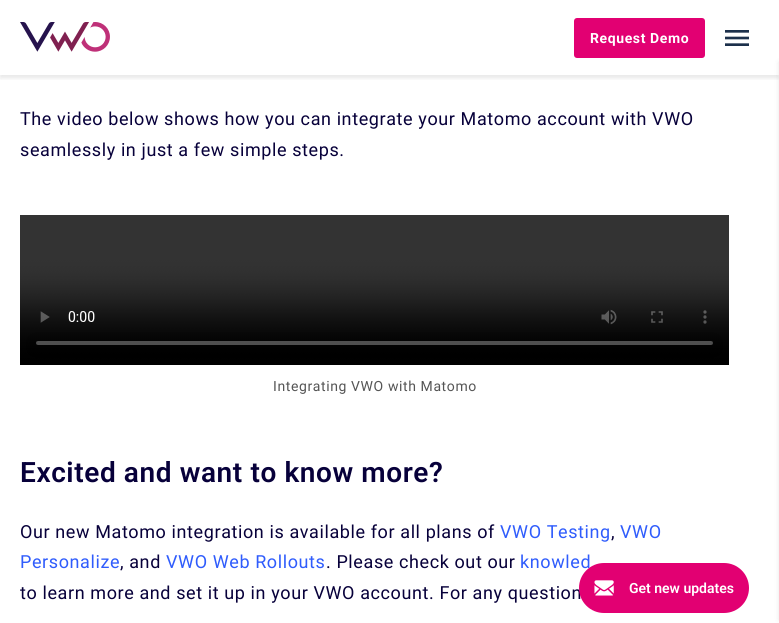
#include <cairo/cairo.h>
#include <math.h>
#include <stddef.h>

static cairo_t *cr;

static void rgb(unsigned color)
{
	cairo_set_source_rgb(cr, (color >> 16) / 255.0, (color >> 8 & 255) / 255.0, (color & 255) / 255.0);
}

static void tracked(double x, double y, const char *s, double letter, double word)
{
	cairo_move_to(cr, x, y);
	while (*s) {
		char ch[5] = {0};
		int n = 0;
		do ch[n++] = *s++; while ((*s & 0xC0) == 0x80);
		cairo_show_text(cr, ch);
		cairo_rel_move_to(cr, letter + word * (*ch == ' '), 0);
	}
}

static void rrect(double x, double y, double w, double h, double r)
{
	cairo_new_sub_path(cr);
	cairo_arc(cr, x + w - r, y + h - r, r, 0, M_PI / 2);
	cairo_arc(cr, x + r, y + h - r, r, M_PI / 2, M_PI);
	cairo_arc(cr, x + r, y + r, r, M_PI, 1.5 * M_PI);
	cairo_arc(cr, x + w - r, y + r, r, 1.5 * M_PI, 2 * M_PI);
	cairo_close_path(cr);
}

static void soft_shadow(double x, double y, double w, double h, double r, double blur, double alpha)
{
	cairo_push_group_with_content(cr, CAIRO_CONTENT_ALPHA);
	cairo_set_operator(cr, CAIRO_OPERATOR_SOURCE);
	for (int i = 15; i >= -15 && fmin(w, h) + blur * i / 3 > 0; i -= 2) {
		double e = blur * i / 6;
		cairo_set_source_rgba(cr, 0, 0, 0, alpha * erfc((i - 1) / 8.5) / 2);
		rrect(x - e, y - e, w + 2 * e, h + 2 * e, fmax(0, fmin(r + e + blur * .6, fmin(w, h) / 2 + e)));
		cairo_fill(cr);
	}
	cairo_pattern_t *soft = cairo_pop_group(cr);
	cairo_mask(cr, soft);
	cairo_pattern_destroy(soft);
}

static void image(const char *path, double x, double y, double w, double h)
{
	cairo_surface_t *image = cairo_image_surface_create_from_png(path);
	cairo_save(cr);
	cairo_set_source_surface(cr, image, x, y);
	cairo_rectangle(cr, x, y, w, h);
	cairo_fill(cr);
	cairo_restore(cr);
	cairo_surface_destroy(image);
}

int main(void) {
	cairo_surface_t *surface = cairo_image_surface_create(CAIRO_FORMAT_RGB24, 779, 623);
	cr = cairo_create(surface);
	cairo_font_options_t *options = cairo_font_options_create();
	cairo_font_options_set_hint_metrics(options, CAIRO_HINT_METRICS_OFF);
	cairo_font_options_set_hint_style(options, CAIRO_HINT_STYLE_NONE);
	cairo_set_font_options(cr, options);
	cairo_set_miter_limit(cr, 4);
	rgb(0xffffff);
	cairo_paint(cr);
	cairo_save(cr);
	cairo_rectangle(cr, 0, 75, 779, 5);
	cairo_clip(cr);
	rgb(0x000000);
	soft_shadow(0, 3, 779, 75, 0, 2.5, 0.1);
	cairo_restore(cr);
	image("img/1.png", 20, 22, 90, 30);
	rgb(0xe20072);
	rrect(574, 18, 131, 40, 3);
	cairo_fill(cr);
	rgb(0x000000);
	soft_shadow(779, 62, 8, 558, 0, 2.5, 0.1);
	image("img/2.png", 725, 30, 24, 16);
	image("img/3.png", 20, 215, 709, 150);
	cairo_select_font_face(cr, "Roboto", CAIRO_FONT_SLANT_NORMAL, CAIRO_FONT_WEIGHT_BOLD);
	cairo_set_font_size(cr, 14);
	rgb(0xffffff);
	tracked(590, 43, "Request Demo", 0.6, 0);
	cairo_select_font_face(cr, "Roboto", CAIRO_FONT_SLANT_NORMAL, CAIRO_FONT_WEIGHT_NORMAL);
	cairo_set_font_size(cr, 18);
	rgb(0x07003a);
	tracked(20, 125, "The video below shows how you can integrate your Matomo account with VWO", 0.6, 0);
	tracked(20, 156, "seamlessly in just a few simple steps.", 0.6, 0);
	cairo_set_font_size(cr, 14);
	rgb(0x555555);
	tracked(273, 391, "Integrating VWO with Matomo", 0.6, 0);
	cairo_select_font_face(cr, "Roboto SemiBold", CAIRO_FONT_SLANT_NORMAL, CAIRO_FONT_WEIGHT_NORMAL);
	cairo_set_font_size(cr, 28);
	rgb(0x07003a);
	tracked(20, 482, "Excited and want to know more?", 0.6, 0);
	cairo_select_font_face(cr, "Roboto", CAIRO_FONT_SLANT_NORMAL, CAIRO_FONT_WEIGHT_NORMAL);
	cairo_set_font_size(cr, 18);
	tracked(20, 538, "Our new Matomo integration is available for all plans of", 0.6, 0);
	rgb(0x2f5cfc);
	tracked(500, 538, "VWO Testing", 0.6, 0);
	rgb(0x07003a);
	tracked(611, 538, ",", 0.6, 0);
	rgb(0x2f5cfc);
	tracked(620, 538, "VWO", 0.6, 0);
	tracked(20, 568, "Personalize", 0.6, 0);
	rgb(0x07003a);
	tracked(120, 568, ", and", 0.6, 0);
	rgb(0x2f5cfc);
	tracked(166, 568, "VWO Web Rollouts", 0.6, 0);
	rgb(0x07003a);
	tracked(326, 568, ". Please check out our", 0.6, 0);
	rgb(0x2f5cfc);
	tracked(520, 568, "knowled", 0.6, 0);
	rgb(0x07003a);
	tracked(20, 599, "to learn more and set it up in your VWO account. For any question", 0.6, 0);
	rgb(0xe20072);
	rrect(579, 563, 170, 50, 25);
	cairo_fill(cr);
	image("img/4.png", 594, 580, 20, 16);
	cairo_select_font_face(cr, "Roboto SemiBold", CAIRO_FONT_SLANT_NORMAL, CAIRO_FONT_WEIGHT_NORMAL);
	cairo_set_font_size(cr, 14);
	rgb(0xffffff);
	cairo_move_to(cr, 629, 593);
	cairo_show_text(cr, "Get new updates");
	cairo_surface_write_to_png(surface, "page.png");
	cairo_font_options_destroy(options);
	cairo_destroy(cr);
	cairo_surface_destroy(surface);
	return 0;
}
